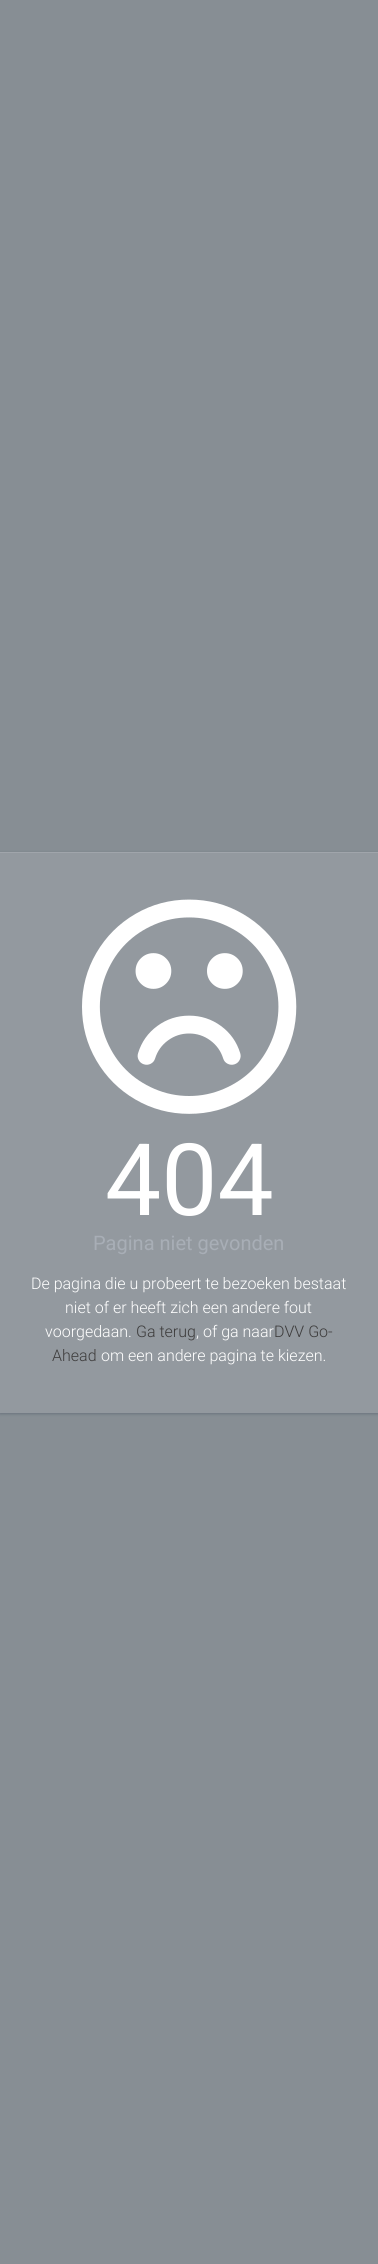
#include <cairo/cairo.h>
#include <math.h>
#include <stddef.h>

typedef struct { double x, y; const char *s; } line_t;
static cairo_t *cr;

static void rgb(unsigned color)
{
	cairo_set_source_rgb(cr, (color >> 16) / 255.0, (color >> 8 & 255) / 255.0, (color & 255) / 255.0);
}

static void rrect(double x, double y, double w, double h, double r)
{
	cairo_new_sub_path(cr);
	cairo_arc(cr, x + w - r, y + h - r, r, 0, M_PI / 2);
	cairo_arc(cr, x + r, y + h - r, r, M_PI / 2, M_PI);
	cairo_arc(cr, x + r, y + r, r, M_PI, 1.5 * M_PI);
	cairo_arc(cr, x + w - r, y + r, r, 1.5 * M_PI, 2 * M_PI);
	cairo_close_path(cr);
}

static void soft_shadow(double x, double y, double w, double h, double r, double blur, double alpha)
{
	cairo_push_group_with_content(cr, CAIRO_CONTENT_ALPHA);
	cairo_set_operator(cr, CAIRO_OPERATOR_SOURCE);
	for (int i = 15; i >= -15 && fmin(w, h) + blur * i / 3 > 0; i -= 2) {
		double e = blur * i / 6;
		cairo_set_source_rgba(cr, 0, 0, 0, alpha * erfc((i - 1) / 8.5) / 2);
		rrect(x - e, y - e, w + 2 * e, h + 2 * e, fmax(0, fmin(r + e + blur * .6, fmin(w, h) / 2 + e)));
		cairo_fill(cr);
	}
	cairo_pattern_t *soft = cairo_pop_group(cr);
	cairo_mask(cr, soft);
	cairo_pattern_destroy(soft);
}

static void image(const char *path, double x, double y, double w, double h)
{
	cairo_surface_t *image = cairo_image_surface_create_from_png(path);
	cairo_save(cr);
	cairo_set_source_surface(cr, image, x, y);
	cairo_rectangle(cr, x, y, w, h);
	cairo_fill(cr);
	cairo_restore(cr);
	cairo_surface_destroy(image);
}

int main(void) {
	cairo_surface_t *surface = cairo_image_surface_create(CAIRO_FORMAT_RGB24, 378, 2264);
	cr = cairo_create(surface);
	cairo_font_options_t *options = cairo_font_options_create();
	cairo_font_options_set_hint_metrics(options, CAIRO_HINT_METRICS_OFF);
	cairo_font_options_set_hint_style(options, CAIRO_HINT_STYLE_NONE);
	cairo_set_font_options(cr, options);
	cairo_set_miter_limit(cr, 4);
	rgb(0x878e94);
	cairo_paint(cr);
	rgb(0x1e3246);
	soft_shadow(0, 853, 378, 561, 0, 1.5, 0.3);
	rgb(0x93999f);
	cairo_rectangle(cr, 0, 853, 378, 560);
	cairo_fill(cr);
	rgb(0xa0a5ab);
	cairo_rectangle(cr, 0, 852, 378, 1);
	cairo_fill(cr);
	image("img/1.png", 82, 899, 215, 215);
	cairo_select_font_face(cr, "Roboto", CAIRO_FONT_SLANT_NORMAL, CAIRO_FONT_WEIGHT_NORMAL);
	cairo_set_font_size(cr, 100);
	rgb(0xffffff);
	cairo_move_to(cr, 105, 1215);
	cairo_show_text(cr, "404");
	cairo_set_font_size(cr, 20);
	rgb(0xa8aeb6);
	cairo_move_to(cr, 93, 1250);
	cairo_show_text(cr, "Pagina niet gevonden");
	cairo_select_font_face(cr, "Roboto Light", CAIRO_FONT_SLANT_NORMAL, CAIRO_FONT_WEIGHT_NORMAL);
	cairo_set_font_size(cr, 16);
	rgb(0xffffff);
	{
		static const line_t items[] = {
			{31, 1289, "De pagina die u probeert te bezoeken bestaat"},
			{65, 1313, "niet of er heeft zich een andere fout"},
			{45, 1337, "voorgedaan."},
		};
		for (size_t i = 0; i < sizeof items / sizeof *items; i++) {
			cairo_move_to(cr, items[i].x, items[i].y);
			cairo_show_text(cr, items[i].s);
		}
	}
	rgb(0x3d3c3c);
	cairo_move_to(cr, 136, 1337);
	cairo_show_text(cr, "Ga terug");
	rgb(0xffffff);
	cairo_move_to(cr, 196, 1337);
	cairo_show_text(cr, ", of ga naar");
	rgb(0x3d3c3c);
	cairo_move_to(cr, 274, 1337);
	cairo_show_text(cr, "DVV Go-");
	cairo_move_to(cr, 52, 1361);
	cairo_show_text(cr, "Ahead");
	rgb(0xffffff);
	cairo_move_to(cr, 101, 1361);
	cairo_show_text(cr, "om een andere pagina te kiezen.");
	cairo_surface_write_to_png(surface, "page.png");
	cairo_font_options_destroy(options);
	cairo_destroy(cr);
	cairo_surface_destroy(surface);
	return 0;
}
